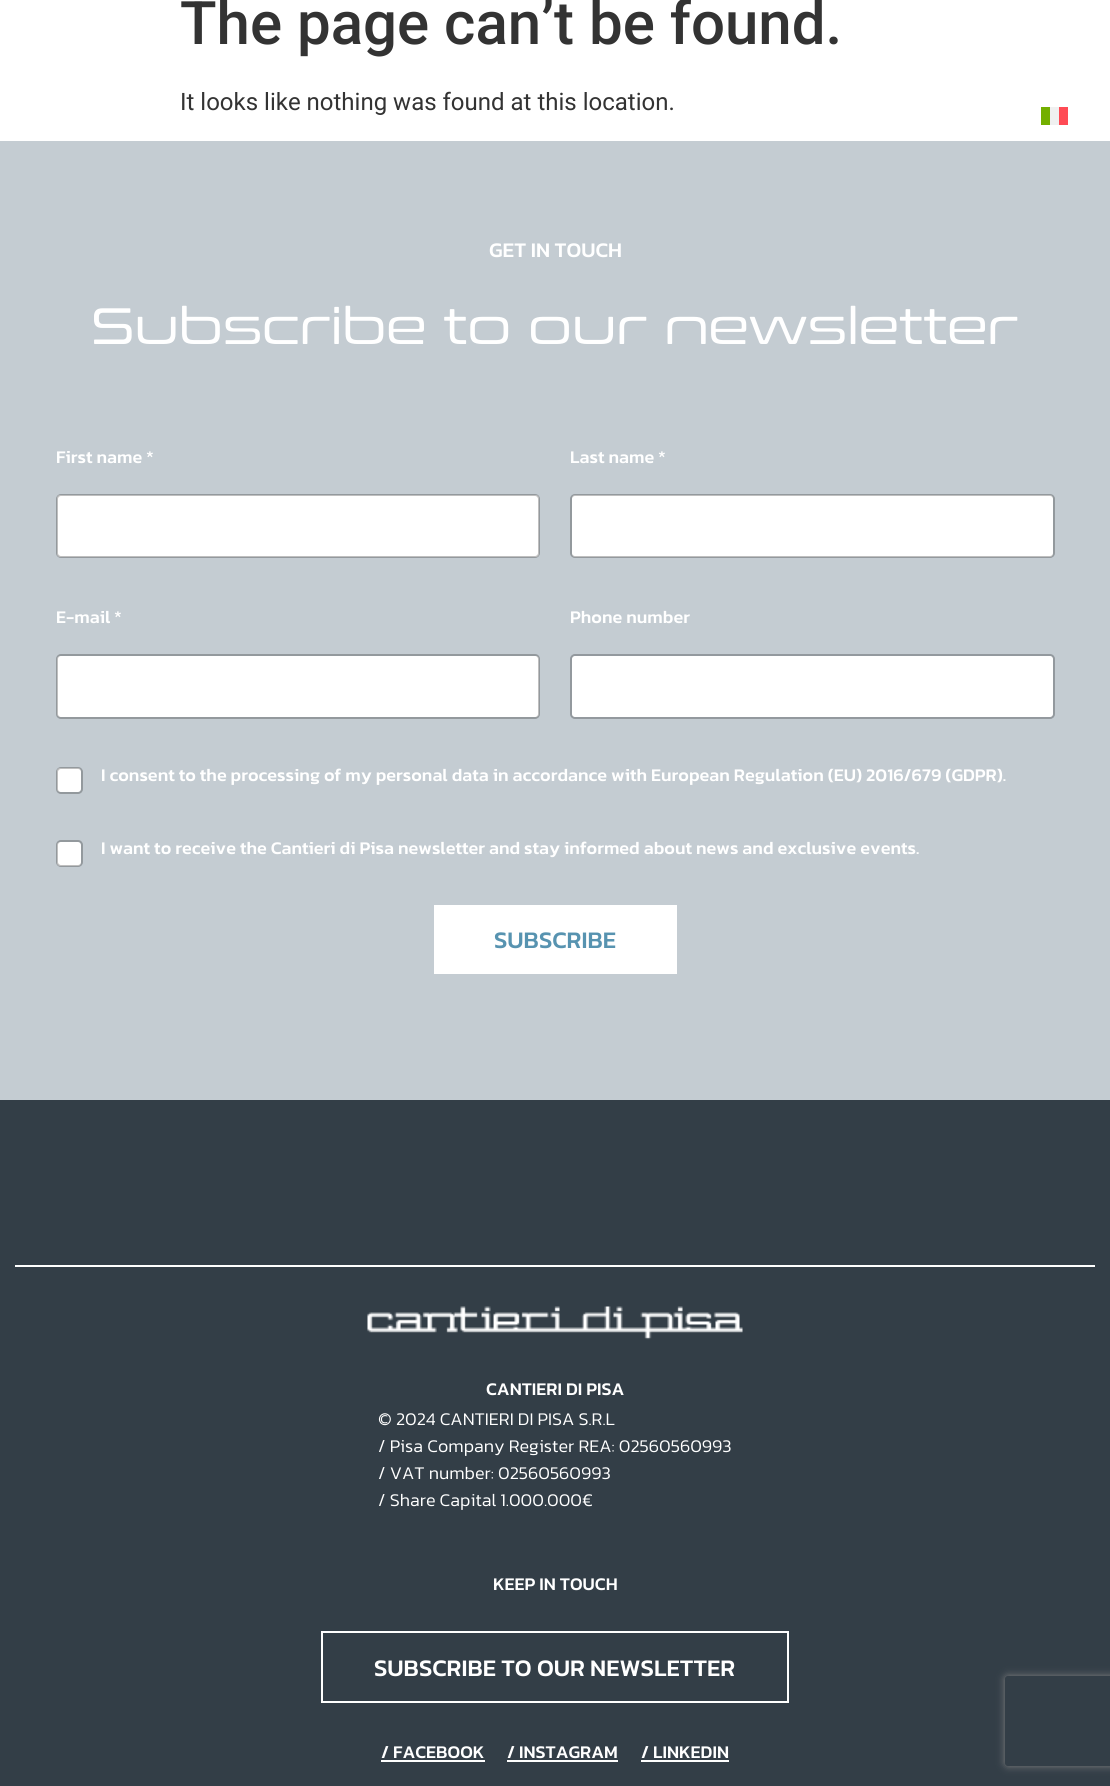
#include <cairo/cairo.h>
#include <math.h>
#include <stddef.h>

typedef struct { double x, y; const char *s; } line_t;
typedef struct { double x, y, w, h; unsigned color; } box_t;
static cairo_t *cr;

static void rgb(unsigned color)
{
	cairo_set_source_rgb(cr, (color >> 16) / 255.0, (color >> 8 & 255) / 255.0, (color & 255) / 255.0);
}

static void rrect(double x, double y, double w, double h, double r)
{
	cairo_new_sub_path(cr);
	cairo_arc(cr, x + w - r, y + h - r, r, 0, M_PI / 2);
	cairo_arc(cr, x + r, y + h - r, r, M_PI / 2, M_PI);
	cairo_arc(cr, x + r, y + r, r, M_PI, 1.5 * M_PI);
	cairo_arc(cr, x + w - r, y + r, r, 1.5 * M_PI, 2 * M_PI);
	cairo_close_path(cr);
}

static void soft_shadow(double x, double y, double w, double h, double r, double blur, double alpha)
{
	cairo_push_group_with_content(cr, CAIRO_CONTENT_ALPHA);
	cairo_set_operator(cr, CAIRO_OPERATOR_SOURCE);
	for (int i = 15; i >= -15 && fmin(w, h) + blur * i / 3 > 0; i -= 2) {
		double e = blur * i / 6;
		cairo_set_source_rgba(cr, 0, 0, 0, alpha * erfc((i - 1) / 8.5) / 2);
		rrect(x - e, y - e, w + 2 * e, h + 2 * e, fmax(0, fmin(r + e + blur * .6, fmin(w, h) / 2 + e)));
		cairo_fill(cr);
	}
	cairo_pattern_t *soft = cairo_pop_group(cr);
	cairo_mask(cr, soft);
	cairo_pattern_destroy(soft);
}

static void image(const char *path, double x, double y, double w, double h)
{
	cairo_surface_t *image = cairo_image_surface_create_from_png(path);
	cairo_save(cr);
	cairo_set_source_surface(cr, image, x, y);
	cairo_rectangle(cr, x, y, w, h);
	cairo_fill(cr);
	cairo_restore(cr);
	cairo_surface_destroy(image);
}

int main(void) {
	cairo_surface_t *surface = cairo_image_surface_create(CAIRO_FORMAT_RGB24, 1110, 1786);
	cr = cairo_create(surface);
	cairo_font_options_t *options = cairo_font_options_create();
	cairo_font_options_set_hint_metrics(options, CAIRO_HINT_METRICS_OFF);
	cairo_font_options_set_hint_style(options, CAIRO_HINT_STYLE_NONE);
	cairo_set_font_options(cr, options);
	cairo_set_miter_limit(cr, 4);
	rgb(0xffffff);
	cairo_paint(cr);
	cairo_set_source_rgba(cr, 1, 1, 1, 0.1);
	cairo_rectangle(cr, 181, 0, 657, 98);
	cairo_fill(cr);
	rgb(0x73af00);
	cairo_rectangle(cr, 1041, 107, 9, 18);
	cairo_fill(cr);
	rgb(0xf0f0f0);
	cairo_rectangle(cr, 1050, 107, 9, 18);
	cairo_fill(cr);
	rgb(0xff4b55);
	cairo_rectangle(cr, 1059, 107, 9, 18);
	cairo_fill(cr);
	rgb(0xc4ccd2);
	cairo_rectangle(cr, 0, 141, 1110, 959);
	cairo_fill(cr);
	rgb(0xffffff);
	rrect(57, 495, 482, 62, 3);
	cairo_fill(cr);
	rrect(57, 495, 482, 62, 4);
	cairo_set_source_rgba(cr, 0, 0, 0, 0.25);
	cairo_stroke(cr);
	rgb(0xffffff);
	rrect(572, 495, 481, 62, 3);
	cairo_fill(cr);
	rrect(571, 495, 483, 62, 4);
	cairo_set_source_rgba(cr, 0, 0, 0, 0.25);
	cairo_stroke(cr);
	rgb(0xffffff);
	rrect(57, 656, 482, 61, 3);
	cairo_fill(cr);
	rrect(57, 655, 482, 63, 4);
	cairo_set_source_rgba(cr, 0, 0, 0, 0.25);
	cairo_stroke(cr);
	rgb(0xffffff);
	rrect(571, 655, 483, 63, 4);
	cairo_fill_preserve(cr);
	rgb(0x93999e);
	cairo_stroke(cr);
	rgb(0xffffff);
	rrect(57, 768, 24, 24, 3);
	cairo_fill(cr);
	rrect(57, 768, 25, 25, 4);
	cairo_set_source_rgba(cr, 0, 0, 0, 0.25);
	cairo_stroke(cr);
	rgb(0xffffff);
	rrect(57, 842, 24, 24, 3);
	cairo_fill(cr);
	rrect(57, 841, 25, 25, 4);
	cairo_set_source_rgba(cr, 0, 0, 0, 0.25);
	cairo_stroke(cr);
	{
		static const box_t items[] = {
			{434, 905, 243, 69, 0xffffff},
			{0, 1100, 1110, 686, 0x333e47},
			{15, 1265, 1080, 2, 0xffffff},
		};
		for (size_t i = 0; i < sizeof items / sizeof *items; i++) {
			rgb(items[i].color);
			cairo_rectangle(cr, items[i].x, items[i].y, items[i].w, items[i].h);
			cairo_fill(cr);
		}
	}
	image("img/1.png", 367, 1306, 376, 34);
	cairo_rectangle(cr, 322, 1632, 466, 70);
	cairo_stroke(cr);
	{
		static const box_t items[] = {
			{381, 1760, 104, 2, 0xffffff},
			{507, 1760, 111, 2, 0xffffff},
			{641, 1760, 88, 2, 0xffffff},
		};
		for (size_t i = 0; i < sizeof items / sizeof *items; i++) {
			rgb(items[i].color);
			cairo_rectangle(cr, items[i].x, items[i].y, items[i].w, items[i].h);
			cairo_fill(cr);
		}
	}
	cairo_save(cr);
	cairo_set_fill_rule(cr, CAIRO_FILL_RULE_EVEN_ODD);
	cairo_new_path(cr);
	cairo_move_to(cr, 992, 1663);
	cairo_line_to(cr, 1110, 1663);
	cairo_line_to(cr, 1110, 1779);
	cairo_line_to(cr, 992, 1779);
	cairo_close_path(cr);
	cairo_move_to(cr, 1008, 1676);
	cairo_line_to(cr, 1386, 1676);
	cairo_curve_to(cr, 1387.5, 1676, 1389, 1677.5, 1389, 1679);
	cairo_line_to(cr, 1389, 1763);
	cairo_curve_to(cr, 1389, 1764.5, 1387.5, 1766, 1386, 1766);
	cairo_line_to(cr, 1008, 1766);
	cairo_curve_to(cr, 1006.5, 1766, 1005, 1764.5, 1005, 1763);
	cairo_line_to(cr, 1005, 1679);
	cairo_curve_to(cr, 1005, 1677.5, 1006.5, 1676, 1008, 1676);
	cairo_close_path(cr);
	cairo_clip(cr);
	rgb(0x808080);
	soft_shadow(1005, 1676, 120, 90, 3, 4, 1);
	cairo_restore(cr);
	cairo_select_font_face(cr, "Roboto Medium", CAIRO_FONT_SLANT_NORMAL, CAIRO_FONT_WEIGHT_NORMAL);
	cairo_set_font_size(cr, 60);
	rgb(0x333333);
	cairo_move_to(cr, 180, 44);
	cairo_show_text(cr, "The page can’t be found.");
	cairo_select_font_face(cr, "Roboto", CAIRO_FONT_SLANT_NORMAL, CAIRO_FONT_WEIGHT_NORMAL);
	cairo_set_font_size(cr, 24);
	cairo_move_to(cr, 180, 110);
	cairo_show_text(cr, "It looks like nothing was found at this location.");
	cairo_select_font_face(cr, "Kanit Medium", CAIRO_FONT_SLANT_NORMAL, CAIRO_FONT_WEIGHT_NORMAL);
	cairo_set_font_size(cr, 21);
	rgb(0xffffff);
	cairo_move_to(cr, 489, 257);
	cairo_show_text(cr, "GET IN TOUCH");
	cairo_select_font_face(cr, "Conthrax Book", CAIRO_FONT_SLANT_NORMAL, CAIRO_FONT_WEIGHT_NORMAL);
	cairo_set_font_size(cr, 51);
	cairo_move_to(cr, 91, 344);
	cairo_show_text(cr, "Subscribe to our newsletter");
	cairo_select_font_face(cr, "Kanit Medium", CAIRO_FONT_SLANT_NORMAL, CAIRO_FONT_WEIGHT_NORMAL);
	cairo_set_font_size(cr, 18);
	cairo_move_to(cr, 56, 463);
	cairo_show_text(cr, "First name");
	cairo_select_font_face(cr, "Kanit", CAIRO_FONT_SLANT_NORMAL, CAIRO_FONT_WEIGHT_NORMAL);
	cairo_move_to(cr, 146, 463);
	cairo_show_text(cr, "*");
	cairo_select_font_face(cr, "Kanit Medium", CAIRO_FONT_SLANT_NORMAL, CAIRO_FONT_WEIGHT_NORMAL);
	cairo_move_to(cr, 570, 463);
	cairo_show_text(cr, "Last name");
	cairo_select_font_face(cr, "Kanit", CAIRO_FONT_SLANT_NORMAL, CAIRO_FONT_WEIGHT_NORMAL);
	cairo_move_to(cr, 658, 463);
	cairo_show_text(cr, "*");
	cairo_select_font_face(cr, "Kanit Medium", CAIRO_FONT_SLANT_NORMAL, CAIRO_FONT_WEIGHT_NORMAL);
	cairo_move_to(cr, 56, 623);
	cairo_show_text(cr, "E-mail");
	cairo_select_font_face(cr, "Kanit", CAIRO_FONT_SLANT_NORMAL, CAIRO_FONT_WEIGHT_NORMAL);
	cairo_move_to(cr, 114, 623);
	cairo_show_text(cr, "*");
	cairo_select_font_face(cr, "Kanit Medium", CAIRO_FONT_SLANT_NORMAL, CAIRO_FONT_WEIGHT_NORMAL);
	{
		static const line_t items[] = {
			{570, 623, "Phone number"},
			{101, 781, "I consent to the processing of my personal data in accordance with European Regulation (EU) 2016/679 (GDPR)."},
			{101, 854, "I want to receive the Cantieri di Pisa newsletter and stay informed about news and exclusive events."},
		};
		for (size_t i = 0; i < sizeof items / sizeof *items; i++) {
			cairo_move_to(cr, items[i].x, items[i].y);
			cairo_show_text(cr, items[i].s);
		}
	}
	cairo_set_font_size(cr, 24);
	rgb(0x5793b0);
	cairo_move_to(cr, 494, 948);
	cairo_show_text(cr, "SUBSCRIBE");
	cairo_set_font_size(cr, 18);
	rgb(0xffffff);
	cairo_move_to(cr, 486, 1395);
	cairo_show_text(cr, "CANTIERI DI PISA");
	cairo_select_font_face(cr, "Kanit Light", CAIRO_FONT_SLANT_NORMAL, CAIRO_FONT_WEIGHT_NORMAL);
	{
		static const line_t items[] = {
			{378, 1425, "© 2024 CANTIERI DI PISA S.R.L"},
			{378, 1452, "/ Pisa Company Register REA: 02560560993"},
			{378, 1479, "/ VAT number: 02560560993"},
			{378, 1506, "/ Share Capital 1.000.000€"},
		};
		for (size_t i = 0; i < sizeof items / sizeof *items; i++) {
			cairo_move_to(cr, items[i].x, items[i].y);
			cairo_show_text(cr, items[i].s);
		}
	}
	cairo_select_font_face(cr, "Kanit Medium", CAIRO_FONT_SLANT_NORMAL, CAIRO_FONT_WEIGHT_NORMAL);
	cairo_move_to(cr, 493, 1590);
	cairo_show_text(cr, "KEEP IN TOUCH");
	cairo_set_font_size(cr, 24);
	cairo_move_to(cr, 374, 1676);
	cairo_show_text(cr, "SUBSCRIBE TO OUR NEWSLETTER");
	cairo_set_font_size(cr, 18);
	{
		static const line_t items[] = {
			{381, 1758, "/ FACEBOOK"},
			{507, 1758, "/ INSTAGRAM"},
			{641, 1758, "/ LINKEDIN"},
		};
		for (size_t i = 0; i < sizeof items / sizeof *items; i++) {
			cairo_move_to(cr, items[i].x, items[i].y);
			cairo_show_text(cr, items[i].s);
		}
	}
	cairo_surface_write_to_png(surface, "page.png");
	cairo_font_options_destroy(options);
	cairo_destroy(cr);
	cairo_surface_destroy(surface);
	return 0;
}
